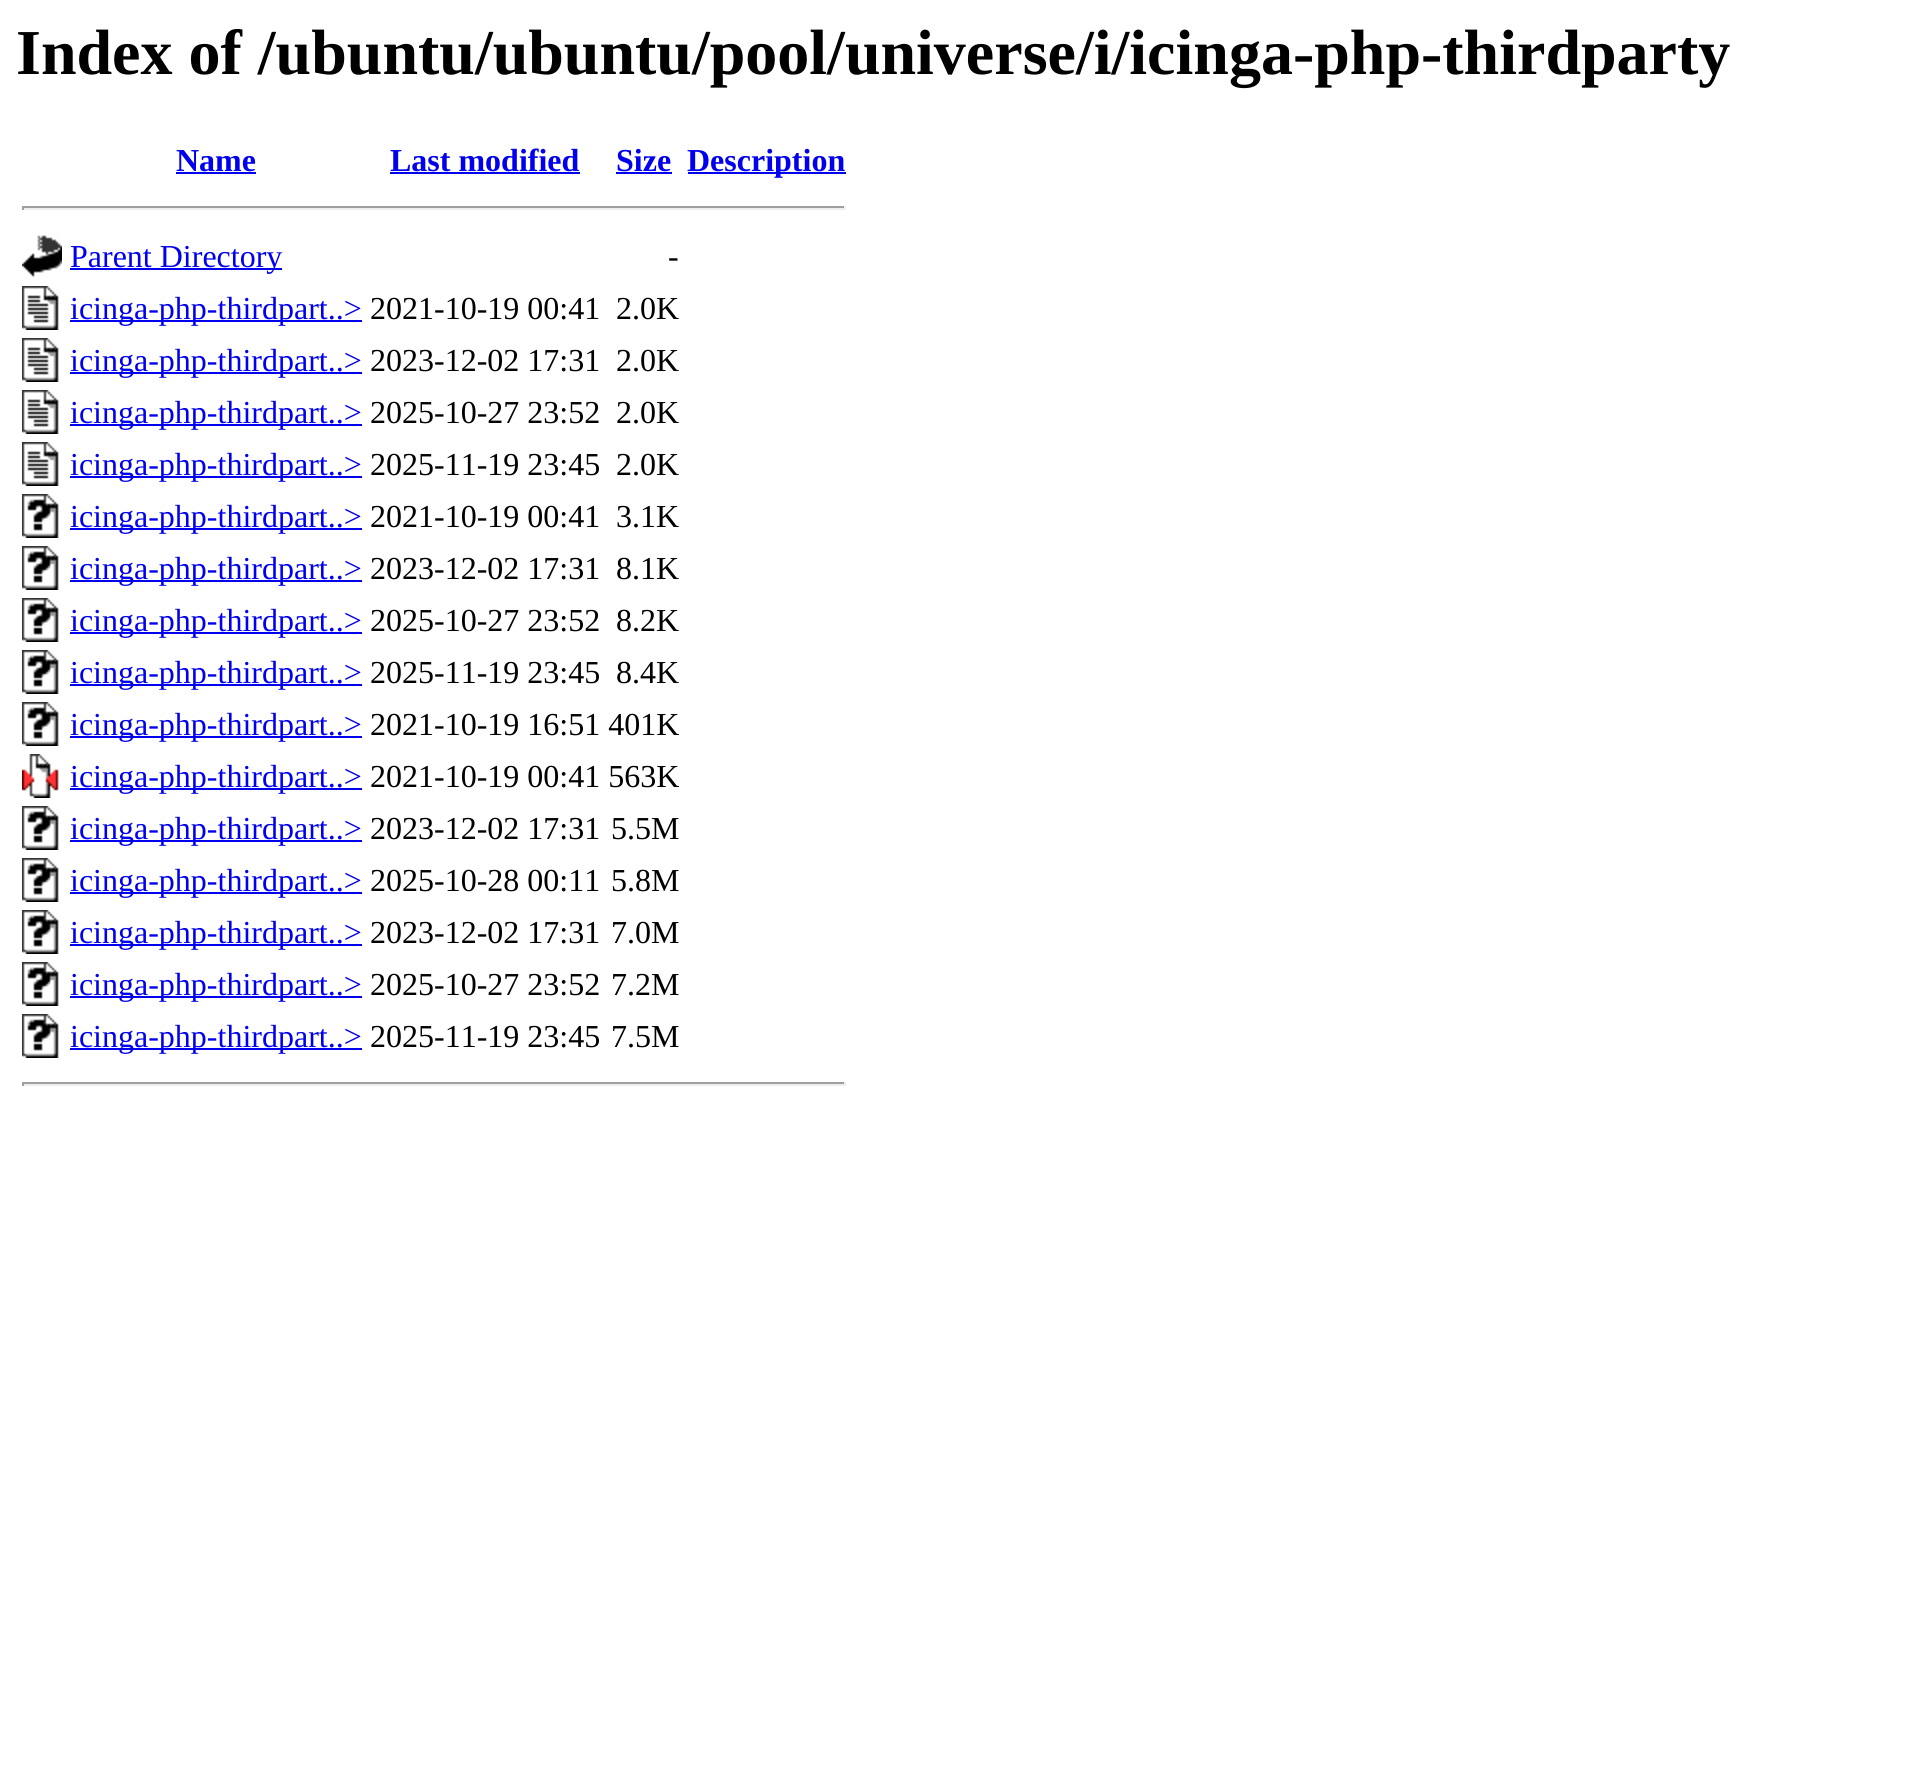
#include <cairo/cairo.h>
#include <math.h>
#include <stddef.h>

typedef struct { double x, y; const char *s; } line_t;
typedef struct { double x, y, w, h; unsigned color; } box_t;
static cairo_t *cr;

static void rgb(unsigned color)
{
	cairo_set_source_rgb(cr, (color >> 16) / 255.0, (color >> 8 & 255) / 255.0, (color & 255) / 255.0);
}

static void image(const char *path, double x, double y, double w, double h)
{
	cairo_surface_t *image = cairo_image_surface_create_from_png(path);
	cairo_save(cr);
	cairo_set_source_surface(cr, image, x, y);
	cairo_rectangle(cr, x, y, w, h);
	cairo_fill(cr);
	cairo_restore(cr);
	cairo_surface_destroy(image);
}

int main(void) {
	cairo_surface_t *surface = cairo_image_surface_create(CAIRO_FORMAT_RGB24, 1931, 1778);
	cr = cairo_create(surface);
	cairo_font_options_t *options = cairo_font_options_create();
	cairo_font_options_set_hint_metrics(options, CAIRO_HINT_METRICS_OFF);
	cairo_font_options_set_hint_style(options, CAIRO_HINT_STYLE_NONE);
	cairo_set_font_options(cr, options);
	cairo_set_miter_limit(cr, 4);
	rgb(0xffffff);
	cairo_paint(cr);
	{
		static const box_t items[] = {
			{176, 172, 80, 2, 0x0000ee},
			{390, 172, 190, 2, 0x0000ee},
			{616, 172, 56, 2, 0x0000ee},
			{688, 172, 158, 2, 0x0000ee},
			{22, 206, 824, 2, 0x9f9f9f},
			{844, 206, 2, 4, 0xeeeeee},
			{22, 208, 824, 2, 0xeeeeee},
			{22, 206, 2, 4, 0x9f9f9f},
		};
		for (size_t i = 0; i < sizeof items / sizeof *items; i++) {
			rgb(items[i].color);
			cairo_rectangle(cr, items[i].x, items[i].y, items[i].w, items[i].h);
			cairo_fill(cr);
		}
	}
	image("img/1.png", 22, 235, 40, 42);
	rgb(0x0000ee);
	cairo_rectangle(cr, 70, 268, 212, 2);
	cairo_fill(cr);
	image("img/2.png", 22, 286, 37, 44);
	cairo_rectangle(cr, 70, 320, 292, 2);
	cairo_fill(cr);
	image("img/2.png", 22, 338, 37, 44);
	cairo_rectangle(cr, 70, 372, 292, 2);
	cairo_fill(cr);
	image("img/2.png", 22, 390, 37, 44);
	cairo_rectangle(cr, 70, 424, 292, 2);
	cairo_fill(cr);
	image("img/2.png", 22, 442, 37, 44);
	cairo_rectangle(cr, 70, 476, 292, 2);
	cairo_fill(cr);
	image("img/3.png", 22, 494, 37, 44);
	cairo_rectangle(cr, 70, 528, 292, 2);
	cairo_fill(cr);
	image("img/3.png", 22, 546, 37, 44);
	cairo_rectangle(cr, 70, 580, 292, 2);
	cairo_fill(cr);
	image("img/3.png", 22, 598, 37, 44);
	cairo_rectangle(cr, 70, 632, 292, 2);
	cairo_fill(cr);
	image("img/3.png", 22, 650, 37, 44);
	cairo_rectangle(cr, 70, 684, 292, 2);
	cairo_fill(cr);
	image("img/3.png", 22, 702, 37, 44);
	cairo_rectangle(cr, 70, 736, 292, 2);
	cairo_fill(cr);
	image("img/4.png", 22, 754, 37, 44);
	cairo_rectangle(cr, 70, 788, 292, 2);
	cairo_fill(cr);
	image("img/3.png", 22, 806, 37, 44);
	cairo_rectangle(cr, 70, 840, 292, 2);
	cairo_fill(cr);
	image("img/3.png", 22, 858, 37, 44);
	cairo_rectangle(cr, 70, 892, 292, 2);
	cairo_fill(cr);
	image("img/3.png", 22, 910, 37, 44);
	cairo_rectangle(cr, 70, 944, 292, 2);
	cairo_fill(cr);
	image("img/3.png", 22, 962, 37, 44);
	cairo_rectangle(cr, 70, 996, 292, 2);
	cairo_fill(cr);
	image("img/3.png", 22, 1014, 37, 44);
	{
		static const box_t items[] = {
			{70, 1048, 292, 2, 0x0000ee},
			{22, 1082, 824, 2, 0x9f9f9f},
			{844, 1082, 2, 4, 0xeeeeee},
			{22, 1084, 824, 2, 0xeeeeee},
			{22, 1082, 2, 4, 0x9f9f9f},
		};
		for (size_t i = 0; i < sizeof items / sizeof *items; i++) {
			rgb(items[i].color);
			cairo_rectangle(cr, items[i].x, items[i].y, items[i].w, items[i].h);
			cairo_fill(cr);
		}
	}
	cairo_select_font_face(cr, "Liberation Serif", CAIRO_FONT_SLANT_NORMAL, CAIRO_FONT_WEIGHT_BOLD);
	cairo_set_font_size(cr, 64);
	rgb(0x000000);
	cairo_move_to(cr, 16, 74);
	cairo_show_text(cr, "Index of /ubuntu/ubuntu/pool/universe/i/icinga-php-thirdparty");
	cairo_set_font_size(cr, 32);
	rgb(0x0000ee);
	{
		static const line_t items[] = {
			{176, 171, "Name"},
			{390, 171, "Last modified"},
			{616, 171, "Size"},
			{687, 171, "Description"},
		};
		for (size_t i = 0; i < sizeof items / sizeof *items; i++) {
			cairo_move_to(cr, items[i].x, items[i].y);
			cairo_show_text(cr, items[i].s);
		}
	}
	cairo_select_font_face(cr, "Liberation Serif", CAIRO_FONT_SLANT_NORMAL, CAIRO_FONT_WEIGHT_NORMAL);
	cairo_move_to(cr, 70, 267);
	cairo_show_text(cr, "Parent Directory");
	rgb(0x000000);
	cairo_move_to(cr, 668, 267);
	cairo_show_text(cr, "-");
	rgb(0x0000ee);
	cairo_move_to(cr, 70, 319);
	cairo_show_text(cr, "icinga-php-thirdpart..>");
	rgb(0x000000);
	cairo_move_to(cr, 370, 319);
	cairo_show_text(cr, "2021-10-19 00:41");
	cairo_move_to(cr, 616, 319);
	cairo_show_text(cr, "2.0K");
	rgb(0x0000ee);
	cairo_move_to(cr, 70, 371);
	cairo_show_text(cr, "icinga-php-thirdpart..>");
	rgb(0x000000);
	cairo_move_to(cr, 370, 371);
	cairo_show_text(cr, "2023-12-02 17:31");
	cairo_move_to(cr, 616, 371);
	cairo_show_text(cr, "2.0K");
	rgb(0x0000ee);
	cairo_move_to(cr, 70, 423);
	cairo_show_text(cr, "icinga-php-thirdpart..>");
	rgb(0x000000);
	cairo_move_to(cr, 370, 423);
	cairo_show_text(cr, "2025-10-27 23:52");
	cairo_move_to(cr, 616, 423);
	cairo_show_text(cr, "2.0K");
	rgb(0x0000ee);
	cairo_move_to(cr, 70, 475);
	cairo_show_text(cr, "icinga-php-thirdpart..>");
	rgb(0x000000);
	cairo_move_to(cr, 370, 475);
	cairo_show_text(cr, "2025-11-19 23:45");
	cairo_move_to(cr, 616, 475);
	cairo_show_text(cr, "2.0K");
	rgb(0x0000ee);
	cairo_move_to(cr, 70, 527);
	cairo_show_text(cr, "icinga-php-thirdpart..>");
	rgb(0x000000);
	cairo_move_to(cr, 370, 527);
	cairo_show_text(cr, "2021-10-19 00:41");
	cairo_move_to(cr, 616, 527);
	cairo_show_text(cr, "3.1K");
	rgb(0x0000ee);
	cairo_move_to(cr, 70, 579);
	cairo_show_text(cr, "icinga-php-thirdpart..>");
	rgb(0x000000);
	cairo_move_to(cr, 370, 579);
	cairo_show_text(cr, "2023-12-02 17:31");
	cairo_move_to(cr, 616, 579);
	cairo_show_text(cr, "8.1K");
	rgb(0x0000ee);
	cairo_move_to(cr, 70, 631);
	cairo_show_text(cr, "icinga-php-thirdpart..>");
	rgb(0x000000);
	cairo_move_to(cr, 370, 631);
	cairo_show_text(cr, "2025-10-27 23:52");
	cairo_move_to(cr, 616, 631);
	cairo_show_text(cr, "8.2K");
	rgb(0x0000ee);
	cairo_move_to(cr, 70, 683);
	cairo_show_text(cr, "icinga-php-thirdpart..>");
	rgb(0x000000);
	cairo_move_to(cr, 370, 683);
	cairo_show_text(cr, "2025-11-19 23:45");
	cairo_move_to(cr, 616, 683);
	cairo_show_text(cr, "8.4K");
	rgb(0x0000ee);
	cairo_move_to(cr, 70, 735);
	cairo_show_text(cr, "icinga-php-thirdpart..>");
	rgb(0x000000);
	cairo_move_to(cr, 370, 735);
	cairo_show_text(cr, "2021-10-19 16:51 401K");
	rgb(0x0000ee);
	cairo_move_to(cr, 70, 787);
	cairo_show_text(cr, "icinga-php-thirdpart..>");
	rgb(0x000000);
	cairo_move_to(cr, 370, 787);
	cairo_show_text(cr, "2021-10-19 00:41 563K");
	rgb(0x0000ee);
	cairo_move_to(cr, 70, 839);
	cairo_show_text(cr, "icinga-php-thirdpart..>");
	rgb(0x000000);
	cairo_move_to(cr, 370, 839);
	cairo_show_text(cr, "2023-12-02 17:31");
	cairo_move_to(cr, 611, 839);
	cairo_show_text(cr, "5.5M");
	rgb(0x0000ee);
	cairo_move_to(cr, 70, 891);
	cairo_show_text(cr, "icinga-php-thirdpart..>");
	rgb(0x000000);
	cairo_move_to(cr, 370, 891);
	cairo_show_text(cr, "2025-10-28 00:11");
	cairo_move_to(cr, 611, 891);
	cairo_show_text(cr, "5.8M");
	rgb(0x0000ee);
	cairo_move_to(cr, 70, 943);
	cairo_show_text(cr, "icinga-php-thirdpart..>");
	rgb(0x000000);
	cairo_move_to(cr, 370, 943);
	cairo_show_text(cr, "2023-12-02 17:31");
	cairo_move_to(cr, 611, 943);
	cairo_show_text(cr, "7.0M");
	rgb(0x0000ee);
	cairo_move_to(cr, 70, 995);
	cairo_show_text(cr, "icinga-php-thirdpart..>");
	rgb(0x000000);
	cairo_move_to(cr, 370, 995);
	cairo_show_text(cr, "2025-10-27 23:52");
	cairo_move_to(cr, 611, 995);
	cairo_show_text(cr, "7.2M");
	rgb(0x0000ee);
	cairo_move_to(cr, 70, 1047);
	cairo_show_text(cr, "icinga-php-thirdpart..>");
	rgb(0x000000);
	cairo_move_to(cr, 370, 1047);
	cairo_show_text(cr, "2025-11-19 23:45");
	cairo_move_to(cr, 611, 1047);
	cairo_show_text(cr, "7.5M");
	cairo_surface_write_to_png(surface, "page.png");
	cairo_font_options_destroy(options);
	cairo_destroy(cr);
	cairo_surface_destroy(surface);
	return 0;
}
